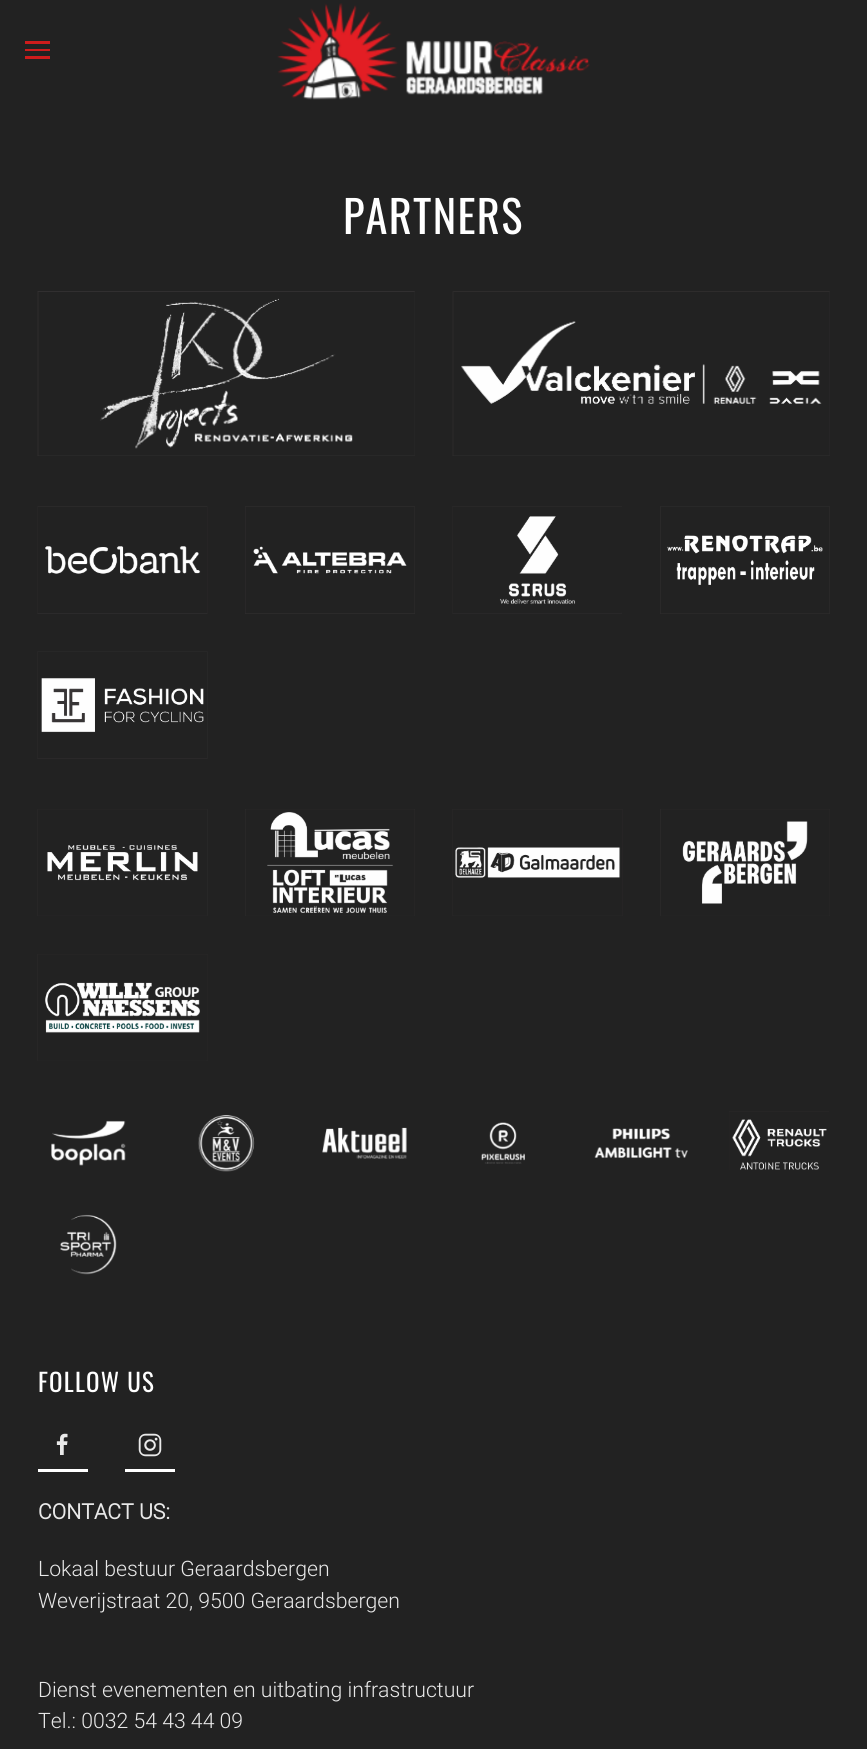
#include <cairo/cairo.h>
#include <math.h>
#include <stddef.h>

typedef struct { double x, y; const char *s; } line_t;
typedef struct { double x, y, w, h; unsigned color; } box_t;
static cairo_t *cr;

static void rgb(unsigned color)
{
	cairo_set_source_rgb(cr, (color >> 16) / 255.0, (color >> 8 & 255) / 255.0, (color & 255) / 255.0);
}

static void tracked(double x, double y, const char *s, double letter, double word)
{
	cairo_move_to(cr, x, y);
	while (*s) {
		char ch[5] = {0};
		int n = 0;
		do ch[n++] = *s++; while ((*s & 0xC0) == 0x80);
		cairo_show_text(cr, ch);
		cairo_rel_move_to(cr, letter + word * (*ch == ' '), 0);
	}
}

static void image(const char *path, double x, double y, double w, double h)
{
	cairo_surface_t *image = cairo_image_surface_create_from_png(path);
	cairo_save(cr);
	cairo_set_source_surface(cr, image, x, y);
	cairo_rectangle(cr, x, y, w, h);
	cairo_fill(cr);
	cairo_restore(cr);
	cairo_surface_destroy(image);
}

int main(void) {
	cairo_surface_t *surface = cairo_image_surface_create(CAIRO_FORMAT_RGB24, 867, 1749);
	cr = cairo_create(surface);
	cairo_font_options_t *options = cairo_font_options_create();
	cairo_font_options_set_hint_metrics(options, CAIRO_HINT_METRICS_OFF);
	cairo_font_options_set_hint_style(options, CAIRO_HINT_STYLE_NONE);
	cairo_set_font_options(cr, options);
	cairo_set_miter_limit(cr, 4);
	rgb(0x222222);
	cairo_paint(cr);
	{
		static const box_t items[] = {
			{25, 41, 25, 3, 0xce1c1c},
			{25, 49, 25, 2, 0xce1c1c},
			{25, 56, 25, 3, 0xce1c1c},
		};
		for (size_t i = 0; i < sizeof items / sizeof *items; i++) {
			rgb(items[i].color);
			cairo_rectangle(cr, items[i].x, items[i].y, items[i].w, items[i].h);
			cairo_fill(cr);
		}
	}
	image("img/1.png", 277, 3, 313, 97);
	image("img/2.png", 37, 291, 378, 165);
	image("img/3.png", 452, 291, 378, 165);
	image("img/4.png", 37, 506, 171, 108);
	image("img/5.png", 245, 506, 170, 108);
	image("img/6.png", 452, 506, 170, 108);
	image("img/7.png", 660, 506, 170, 108);
	image("img/8.png", 37, 651, 171, 108);
	image("img/9.png", 37, 809, 171, 107);
	image("img/10.png", 245, 809, 170, 107);
	image("img/11.png", 452, 809, 171, 107);
	image("img/12.png", 660, 809, 170, 107);
	image("img/13.png", 37, 954, 171, 107);
	image("img/14.png", 51, 1120, 75, 46);
	image("img/15.png", 198, 1115, 57, 57);
	image("img/16.png", 322, 1127, 85, 32);
	image("img/17.png", 481, 1122, 44, 42);
	image("img/18.png", 594, 1128, 94, 31);
	image("img/19.png", 729, 1111, 100, 59);
	image("img/20.png", 60, 1214, 57, 61);
	rgb(0xffffff);
	cairo_rectangle(cr, 38, 1469, 50, 3);
	cairo_fill(cr);
	image("img/21.png", 56, 1433, 12, 22);
	cairo_rectangle(cr, 125, 1469, 50, 3);
	cairo_fill(cr);
	image("img/22.png", 138, 1433, 24, 24);
	cairo_select_font_face(cr, "Oswald", CAIRO_FONT_SLANT_NORMAL, CAIRO_FONT_WEIGHT_NORMAL);
	cairo_set_font_size(cr, 44.5);
	tracked(343, 234, "PARTNERS", 1.25, 0);
	cairo_set_font_size(cr, 25);
	tracked(38, 1392, "FOLLOW US", 1.25, 0);
	cairo_select_font_face(cr, "Roboto", CAIRO_FONT_SLANT_NORMAL, CAIRO_FONT_WEIGHT_BOLD);
	cairo_set_font_size(cr, 21.25);
	rgb(0xe9e9e9);
	cairo_move_to(cr, 38, 1519);
	cairo_show_text(cr, "CONTACT US:");
	cairo_select_font_face(cr, "Roboto Light", CAIRO_FONT_SLANT_NORMAL, CAIRO_FONT_WEIGHT_NORMAL);
	{
		static const line_t items[] = {
			{38, 1576, "Lokaal bestuur Geraardsbergen"},
			{38, 1608, "Weverijstraat 20, 9500 Geraardsbergen"},
			{38, 1697, "Dienst evenementen en uitbating infrastructuur"},
			{38, 1728, "Tel.: 0032 54 43 44 09"},
		};
		for (size_t i = 0; i < sizeof items / sizeof *items; i++) {
			cairo_move_to(cr, items[i].x, items[i].y);
			cairo_show_text(cr, items[i].s);
		}
	}
	cairo_surface_write_to_png(surface, "page.png");
	cairo_font_options_destroy(options);
	cairo_destroy(cr);
	cairo_surface_destroy(surface);
	return 0;
}
